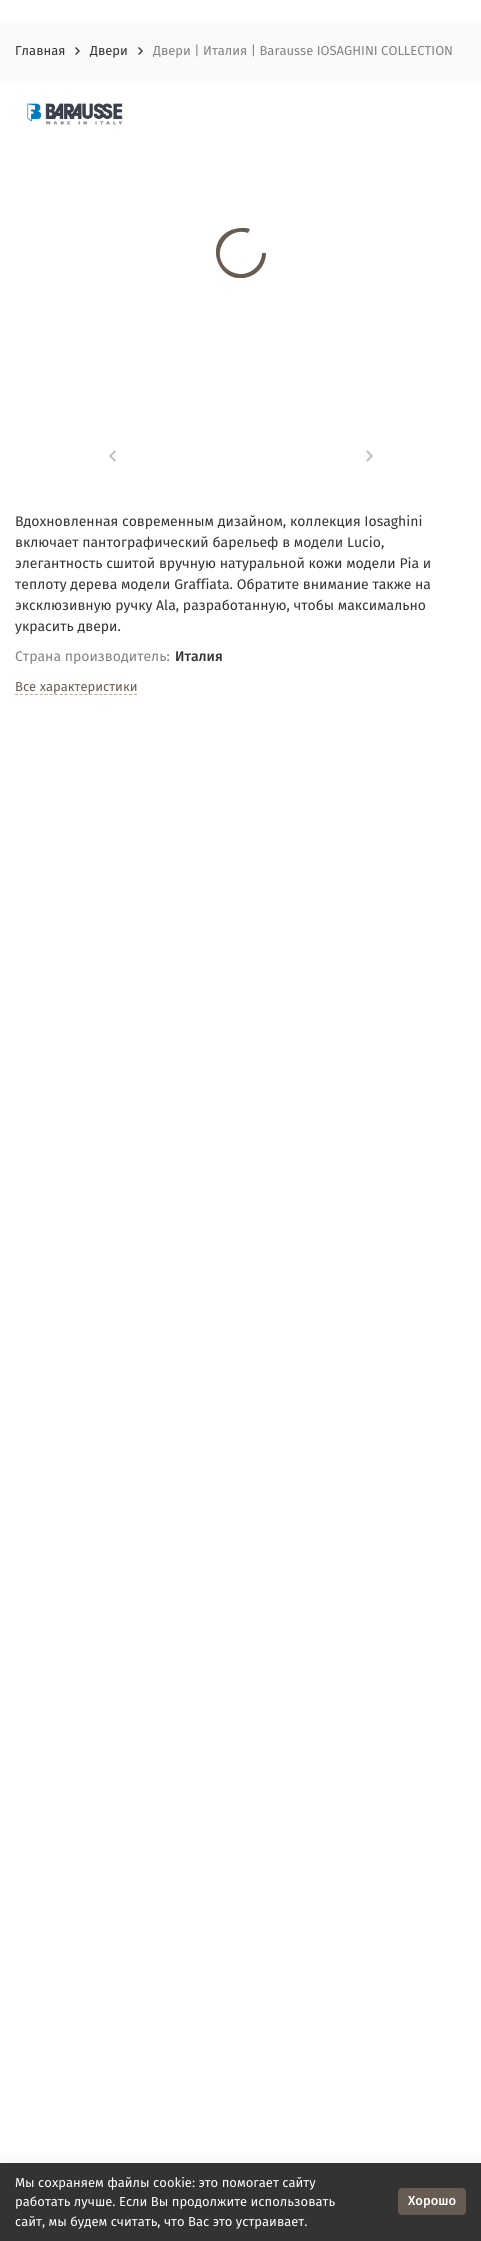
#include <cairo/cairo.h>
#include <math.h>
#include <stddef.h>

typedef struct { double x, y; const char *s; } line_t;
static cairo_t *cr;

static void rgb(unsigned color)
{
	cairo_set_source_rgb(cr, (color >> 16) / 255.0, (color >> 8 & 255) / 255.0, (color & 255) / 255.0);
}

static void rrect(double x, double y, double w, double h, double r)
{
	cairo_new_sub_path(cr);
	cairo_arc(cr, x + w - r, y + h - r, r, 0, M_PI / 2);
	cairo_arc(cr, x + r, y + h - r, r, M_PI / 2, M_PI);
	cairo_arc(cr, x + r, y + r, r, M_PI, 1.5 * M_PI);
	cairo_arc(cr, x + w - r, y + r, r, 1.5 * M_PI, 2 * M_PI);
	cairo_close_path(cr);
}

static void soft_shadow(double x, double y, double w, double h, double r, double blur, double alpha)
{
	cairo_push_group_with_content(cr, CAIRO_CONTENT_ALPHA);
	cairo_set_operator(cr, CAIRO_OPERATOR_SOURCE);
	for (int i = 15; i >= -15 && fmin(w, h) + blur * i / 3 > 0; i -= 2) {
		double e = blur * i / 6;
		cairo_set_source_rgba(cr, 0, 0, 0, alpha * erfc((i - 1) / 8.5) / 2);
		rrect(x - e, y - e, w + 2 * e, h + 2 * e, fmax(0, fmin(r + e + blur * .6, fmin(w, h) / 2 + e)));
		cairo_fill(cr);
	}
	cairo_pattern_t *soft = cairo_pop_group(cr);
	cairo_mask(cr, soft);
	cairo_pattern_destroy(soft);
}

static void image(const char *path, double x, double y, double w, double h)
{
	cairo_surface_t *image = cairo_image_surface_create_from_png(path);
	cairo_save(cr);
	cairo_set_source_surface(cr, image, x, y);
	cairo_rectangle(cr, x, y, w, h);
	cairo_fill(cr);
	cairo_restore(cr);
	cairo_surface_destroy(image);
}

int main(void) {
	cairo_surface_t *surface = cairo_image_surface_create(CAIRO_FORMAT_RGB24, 481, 2241);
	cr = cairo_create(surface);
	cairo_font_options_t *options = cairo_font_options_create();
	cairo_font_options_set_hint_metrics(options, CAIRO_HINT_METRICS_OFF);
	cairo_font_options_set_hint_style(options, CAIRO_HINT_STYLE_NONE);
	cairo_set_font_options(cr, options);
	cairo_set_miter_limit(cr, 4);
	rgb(0xffffff);
	cairo_paint(cr);
	rgb(0xfafafa);
	cairo_rectangle(cr, 0, 21, 481, 60);
	cairo_fill(cr);
	image("img/1.png", 75, 47, 5, 8);
	image("img/1.png", 138, 47, 5, 8);
	image("img/2.png", 27, 103, 96, 22);
	cairo_save(cr);
	cairo_rectangle(cr, 216, 228, 50, 50);
	cairo_clip(cr);
	rgb(0x685b51);
	cairo_new_path(cr);
	cairo_move_to(cr, 241, 274);
	cairo_curve_to(cr, 236, 274, 230, 272, 226, 268);
	cairo_curve_to(cr, 210, 252, 228, 226, 248, 233);
	cairo_line_to(cr, 250, 229);
	cairo_curve_to(cr, 244, 227, 237, 228, 231, 230);
	cairo_curve_to(cr, 201, 243, 220, 289, 251, 276);
	cairo_curve_to(cr, 260, 272, 266, 263, 266, 253);
	cairo_line_to(cr, 262, 253);
	cairo_curve_to(cr, 262, 264, 252, 274, 241, 274);
	cairo_close_path(cr);
	cairo_fill(cr);
	cairo_restore(cr);
	image("img/3.png", 109, 450, 7, 12);
	image("img/4.png", 366, 450, 7, 12);
	cairo_new_path(cr);
	cairo_move_to(cr, 15, 694.5);
	cairo_line_to(cr, 137, 694.5);
	rgb(0xb4ada8);
	cairo_set_line_width(cr, 1);
	cairo_set_dash(cr, (double[]){3, 1.96}, 2, 0);
	cairo_stroke(cr);
	rgb(0x000000);
	soft_shadow(0, 2163, 481, 78, 0, 7.5, 0.07);
	rgb(0x333333);
	cairo_rectangle(cr, 0, 2163, 481, 78);
	cairo_fill(cr);
	rgb(0x685b51);
	rrect(398, 2188, 68, 27, 4);
	cairo_fill(cr);
	cairo_select_font_face(cr, "Fira Sans", CAIRO_FONT_SLANT_NORMAL, CAIRO_FONT_WEIGHT_NORMAL);
	cairo_set_font_size(cr, 13);
	rgb(0x333333);
	cairo_move_to(cr, 15, 55);
	cairo_show_text(cr, "Главная");
	cairo_move_to(cr, 90, 55);
	cairo_show_text(cr, "Двери");
	rgb(0x828282);
	cairo_move_to(cr, 153, 55);
	cairo_show_text(cr, "Двери | Италия | Barausse IOSAGHINI COLLECTION");
	cairo_set_font_size(cr, 14);
	rgb(0x333333);
	{
		static const line_t items[] = {
			{15, 526, "Вдохновленная современным дизайном, коллекция Iosaghini"},
			{15, 547, "включает пантографический барельеф в модели Lucio,"},
			{15, 568, "элегантность сшитой вручную натуральной кожи модели Pia и"},
			{15, 589, "теплоту дерева модели Graffiata. Обратите внимание также на"},
			{15, 610, "эксклюзивную ручку Ala, разработанную, чтобы максимально"},
			{15, 631, "украсить двери."},
		};
		for (size_t i = 0; i < sizeof items / sizeof *items; i++) {
			cairo_move_to(cr, items[i].x, items[i].y);
			cairo_show_text(cr, items[i].s);
		}
	}
	rgb(0x828282);
	cairo_move_to(cr, 15, 661);
	cairo_show_text(cr, "Страна производитель:");
	cairo_select_font_face(cr, "Fira Sans Medium", CAIRO_FONT_SLANT_NORMAL, CAIRO_FONT_WEIGHT_NORMAL);
	rgb(0x333333);
	cairo_move_to(cr, 175, 661);
	cairo_show_text(cr, "Италия");
	cairo_select_font_face(cr, "Fira Sans", CAIRO_FONT_SLANT_NORMAL, CAIRO_FONT_WEIGHT_NORMAL);
	cairo_set_font_size(cr, 13);
	rgb(0x685b51);
	cairo_move_to(cr, 15, 691);
	cairo_show_text(cr, "Все характеристики");
	rgb(0xffffff);
	{
		static const line_t items[] = {
			{15, 2187, "Мы сохраняем файлы cookie: это помогает сайту"},
			{15, 2206, "работать лучше. Если Вы продолжите использовать"},
			{15, 2226, "сайт, мы будем считать, что Вас это устраивает."},
		};
		for (size_t i = 0; i < sizeof items / sizeof *items; i++) {
			cairo_move_to(cr, items[i].x, items[i].y);
			cairo_show_text(cr, items[i].s);
		}
	}
	cairo_select_font_face(cr, "Fira Sans Medium", CAIRO_FONT_SLANT_NORMAL, CAIRO_FONT_WEIGHT_NORMAL);
	cairo_move_to(cr, 408, 2205);
	cairo_show_text(cr, "Хорошо");
	cairo_surface_write_to_png(surface, "page.png");
	cairo_font_options_destroy(options);
	cairo_destroy(cr);
	cairo_surface_destroy(surface);
	return 0;
}
